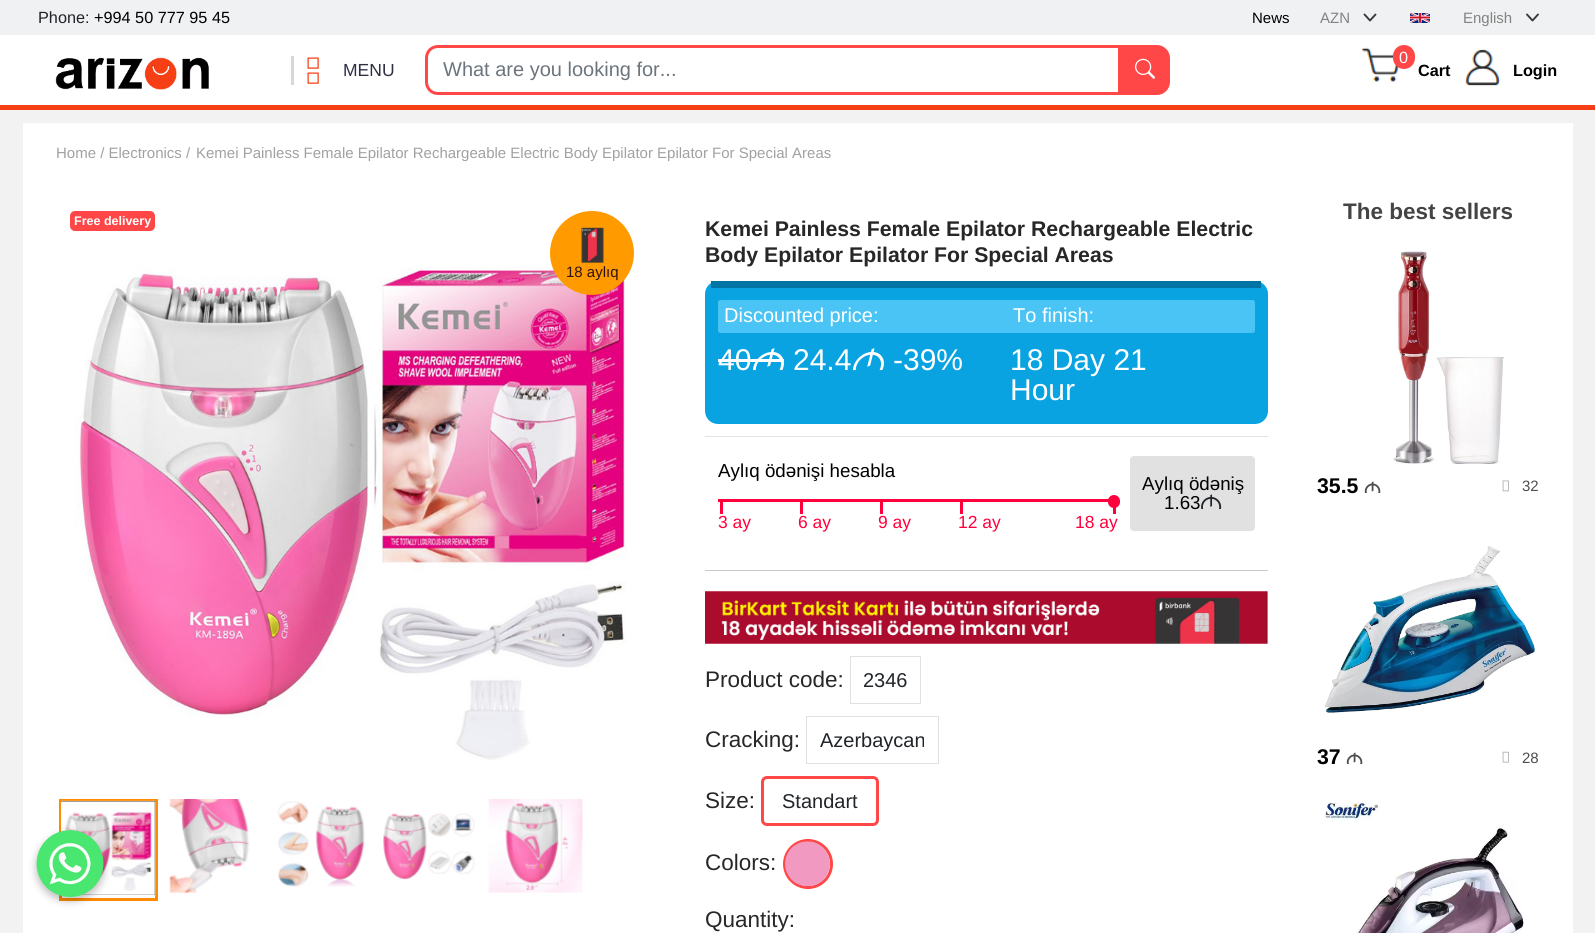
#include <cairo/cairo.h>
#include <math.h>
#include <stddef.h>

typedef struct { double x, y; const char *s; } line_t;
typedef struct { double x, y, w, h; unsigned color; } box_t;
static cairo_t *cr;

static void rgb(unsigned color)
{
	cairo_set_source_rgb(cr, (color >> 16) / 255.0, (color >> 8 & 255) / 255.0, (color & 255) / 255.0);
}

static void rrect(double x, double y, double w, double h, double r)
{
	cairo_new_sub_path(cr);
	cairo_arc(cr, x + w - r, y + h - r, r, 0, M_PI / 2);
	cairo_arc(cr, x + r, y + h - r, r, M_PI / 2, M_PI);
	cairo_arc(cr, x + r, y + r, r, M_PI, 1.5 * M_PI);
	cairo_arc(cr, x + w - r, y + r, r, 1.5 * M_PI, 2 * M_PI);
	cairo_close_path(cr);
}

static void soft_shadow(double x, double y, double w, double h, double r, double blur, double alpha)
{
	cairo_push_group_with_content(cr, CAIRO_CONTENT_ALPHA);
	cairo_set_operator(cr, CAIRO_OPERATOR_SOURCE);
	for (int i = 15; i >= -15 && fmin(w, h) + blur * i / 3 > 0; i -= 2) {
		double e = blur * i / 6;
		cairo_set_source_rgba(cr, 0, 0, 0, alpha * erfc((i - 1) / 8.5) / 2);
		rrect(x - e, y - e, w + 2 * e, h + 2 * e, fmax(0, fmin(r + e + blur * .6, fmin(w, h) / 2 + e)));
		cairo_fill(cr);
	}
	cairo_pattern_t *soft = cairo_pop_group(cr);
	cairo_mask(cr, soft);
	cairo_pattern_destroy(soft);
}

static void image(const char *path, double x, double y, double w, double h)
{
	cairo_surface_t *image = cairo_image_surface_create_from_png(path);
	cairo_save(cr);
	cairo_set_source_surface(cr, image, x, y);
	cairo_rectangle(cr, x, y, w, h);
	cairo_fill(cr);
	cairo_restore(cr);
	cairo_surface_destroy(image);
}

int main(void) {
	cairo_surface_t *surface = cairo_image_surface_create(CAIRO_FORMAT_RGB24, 1595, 933);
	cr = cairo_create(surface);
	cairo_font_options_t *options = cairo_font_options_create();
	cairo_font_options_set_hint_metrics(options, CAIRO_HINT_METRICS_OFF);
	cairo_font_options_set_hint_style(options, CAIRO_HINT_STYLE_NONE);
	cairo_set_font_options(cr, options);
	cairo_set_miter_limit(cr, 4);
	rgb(0xffffff);
	cairo_paint(cr);
	rgb(0xf63f15);
	cairo_rectangle(cr, 0, 105, 1595, 5);
	cairo_fill(cr);
	rgb(0xf0f1f2);
	cairo_rectangle(cr, 0, 0, 1595, 35);
	cairo_fill(cr);
	cairo_new_path(cr);
	cairo_move_to(cr, 1364.5, 14.5);
	cairo_line_to(cr, 1370, 20.5);
	cairo_line_to(cr, 1375.5, 14.5);
	rgb(0x343a40);
	cairo_set_line_width(cr, 1.9);
	cairo_set_line_cap(cr, CAIRO_LINE_CAP_ROUND);
	cairo_set_line_join(cr, CAIRO_LINE_JOIN_ROUND);
	cairo_stroke(cr);
	cairo_new_path(cr);
	cairo_move_to(cr, 1527, 14.5);
	cairo_line_to(cr, 1532.5, 20.5);
	cairo_line_to(cr, 1538, 14.5);
	cairo_stroke(cr);
	image("img/1.png", 1410, 13, 20, 10);
	image("img/2.png", 55, 57, 154, 33);
	rgb(0xd8d8d8);
	cairo_rectangle(cr, 291, 56, 3, 29);
	cairo_fill(cr);
	image("img/3.png", 307, 57, 12, 27);
	rgb(0xff4747);
	cairo_new_path(cr);
	cairo_move_to(cr, 1120, 45);
	cairo_line_to(cr, 1157, 45);
	cairo_curve_to(cr, 1164, 45, 1170, 51, 1170, 58);
	cairo_line_to(cr, 1170, 82);
	cairo_curve_to(cr, 1170, 89, 1164, 95, 1157, 95);
	cairo_line_to(cr, 1120, 95);
	cairo_close_path(cr);
	cairo_fill(cr);
	cairo_new_path(cr);
	cairo_move_to(cr, 438, 46.5);
	cairo_line_to(cr, 1119.5, 46.5);
	cairo_line_to(cr, 1119.5, 93.5);
	cairo_line_to(cr, 438, 93.5);
	cairo_curve_to(cr, 431.5, 93.5, 426.5, 88.5, 426.5, 82);
	cairo_line_to(cr, 426.5, 58);
	cairo_curve_to(cr, 426.5, 51.5, 431.5, 46.5, 438, 46.5);
	cairo_close_path(cr);
	cairo_set_line_width(cr, 3);
	cairo_set_line_cap(cr, CAIRO_LINE_CAP_BUTT);
	cairo_set_line_join(cr, CAIRO_LINE_JOIN_MITER);
	cairo_stroke(cr);
	image("img/4.png", 1135, 58, 20, 21);
	image("img/5.png", 1361, 47, 40, 35);
	rrect(1393, 45, 22, 24, 11);
	cairo_fill(cr);
	image("img/6.png", 1464, 49, 37, 37);
	rgb(0xf2f2f2);
	cairo_rectangle(cr, 0, 110, 1595, 823);
	cairo_fill(cr);
	rgb(0xffffff);
	cairo_rectangle(cr, 23, 123, 1550, 810);
	cairo_fill(cr);
	rgb(0xff4747);
	rrect(70, 211, 85, 20, 5);
	cairo_fill(cr);
	image("img/7.png", 75, 266, 552, 494);
	rgb(0xff9a00);
	cairo_arc(cr, 592, 253, 42, 0, 2 * M_PI);
	cairo_fill(cr);
	image("img/8.png", 581, 227, 23, 36);
	cairo_rectangle(cr, 60.5, 800.5, 96, 99);
	rgb(0xff8a01);
	cairo_stroke(cr);
	rgb(0x000000);
	cairo_rectangle(cr, 61, 801, 94, 94);
	cairo_fill(cr);
	image("img/9.png", 61, 800, 95, 96);
	image("img/10.png", 169, 799, 81, 94);
	image("img/11.png", 278, 801, 87, 86);
	image("img/12.png", 383, 813, 92, 67);
	image("img/13.png", 488, 799, 95, 94);
	rgb(0x08a3e0);
	rrect(705, 281, 563, 143, 13);
	cairo_fill(cr);
	rgb(0x0074a3);
	cairo_rectangle(cr, 711, 281, 550, 7);
	cairo_fill(cr);
	rgb(0x4ac4f4);
	rrect(718, 300, 537, 33, 2.5);
	cairo_fill(cr);
	{
		static const box_t items[] = {
			{718, 359, 33, 3, 0xffffff},
			{751, 359, 33, 3, 0xffffff},
			{705, 436, 563, 1, 0xe3e3e4},
			{718, 499, 391, 3, 0xff003c},
			{720, 501, 3, 13, 0xff003c},
			{800, 501, 3, 13, 0xff003c},
			{880, 501, 3, 13, 0xff003c},
			{960, 501, 3, 13, 0xff003c},
			{1113, 501, 3, 13, 0xff003c},
		};
		for (size_t i = 0; i < sizeof items / sizeof *items; i++) {
			rgb(items[i].color);
			cairo_rectangle(cr, items[i].x, items[i].y, items[i].w, items[i].h);
			cairo_fill(cr);
		}
	}
	rrect(1108, 495, 12, 13, 6);
	cairo_fill(cr);
	rgb(0xe1e1e1);
	rrect(1130, 456, 125, 75, 4);
	cairo_fill(cr);
	rgb(0xc8c9ca);
	cairo_rectangle(cr, 705, 570, 563, 1);
	cairo_fill(cr);
	image("img/14.png", 705, 591, 563, 53);
	cairo_rectangle(cr, 850.5, 656.5, 70, 47);
	rgb(0xe1e1e1);
	cairo_set_line_width(cr, 1);
	cairo_stroke(cr);
	cairo_rectangle(cr, 806.5, 716.5, 132, 47);
	cairo_stroke(cr);
	rrect(762.5, 777.5, 115, 47, 4.5);
	rgb(0xff4747);
	cairo_set_line_width(cr, 3);
	cairo_stroke(cr);
	cairo_arc(cr, 808, 864, 23.5, 0, 2 * M_PI);
	cairo_stroke(cr);
	image("img/15.png", 785, 841, 45, 46);
	image("img/16.png", 1393, 251, 111, 213);
	image("img/17.png", 1502, 480, 7, 12);
	image("img/18.png", 1325, 546, 210, 167);
	image("img/19.png", 1502, 751, 7, 12);
	image("img/20.png", 1324, 802, 200, 131);
	rgb(0x000000);
	soft_shadow(36, 834, 68, 67, 33.5, 4, 0.25);
	image("img/21.png", 36, 830, 68, 67);
	cairo_select_font_face(cr, "Liberation Sans", CAIRO_FONT_SLANT_NORMAL, CAIRO_FONT_WEIGHT_NORMAL);
	cairo_set_font_size(cr, 16.25);
	rgb(0x212529);
	cairo_move_to(cr, 38, 23);
	cairo_show_text(cr, "Phone:");
	rgb(0x000000);
	cairo_move_to(cr, 94, 23);
	cairo_show_text(cr, "+994 50 777 95 45");
	cairo_set_font_size(cr, 15);
	cairo_move_to(cr, 1252, 23);
	cairo_show_text(cr, "News");
	rgb(0x838383);
	cairo_move_to(cr, 1320, 23);
	cairo_show_text(cr, "AZN");
	cairo_move_to(cr, 1463, 23);
	cairo_show_text(cr, "English");
	cairo_set_font_size(cr, 17.5);
	rgb(0x2d2f43);
	cairo_move_to(cr, 343, 76);
	cairo_show_text(cr, "MENU");
	cairo_set_font_size(cr, 20);
	rgb(0x6c757d);
	cairo_move_to(cr, 443, 76);
	cairo_show_text(cr, "What are you looking for...");
	cairo_set_font_size(cr, 16.25);
	rgb(0xffffff);
	cairo_move_to(cr, 1399, 63);
	cairo_show_text(cr, "0");
	cairo_select_font_face(cr, "Liberation Sans", CAIRO_FONT_SLANT_NORMAL, CAIRO_FONT_WEIGHT_BOLD);
	rgb(0x000000);
	cairo_move_to(cr, 1418, 76);
	cairo_show_text(cr, "Cart");
	cairo_move_to(cr, 1513, 76);
	cairo_show_text(cr, "Login");
	cairo_select_font_face(cr, "Liberation Sans", CAIRO_FONT_SLANT_NORMAL, CAIRO_FONT_WEIGHT_NORMAL);
	cairo_set_font_size(cr, 15);
	rgb(0xa1a1a1);
	cairo_move_to(cr, 56, 158);
	cairo_show_text(cr, "Home / Electronics /");
	cairo_move_to(cr, 196, 158);
	cairo_show_text(cr, "Kemei Painless Female Epilator Rechargeable Electric Body Epilator Epilator For Special Areas");
	cairo_select_font_face(cr, "Liberation Sans", CAIRO_FONT_SLANT_NORMAL, CAIRO_FONT_WEIGHT_BOLD);
	cairo_set_font_size(cr, 12.5);
	rgb(0xffffff);
	cairo_move_to(cr, 74, 225);
	cairo_show_text(cr, "Free delivery");
	cairo_select_font_face(cr, "Liberation Sans", CAIRO_FONT_SLANT_NORMAL, CAIRO_FONT_WEIGHT_NORMAL);
	cairo_set_font_size(cr, 15);
	rgb(0x2d1414);
	cairo_move_to(cr, 566, 277);
	cairo_show_text(cr, "18 aylıq");
	cairo_select_font_face(cr, "Liberation Sans", CAIRO_FONT_SLANT_NORMAL, CAIRO_FONT_WEIGHT_BOLD);
	cairo_set_font_size(cr, 21.25);
	rgb(0x272727);
	cairo_move_to(cr, 705, 236);
	cairo_show_text(cr, "Kemei Painless Female Epilator Rechargeable Electric");
	cairo_move_to(cr, 705, 262);
	cairo_show_text(cr, "Body Epilator Epilator For Special Areas");
	cairo_select_font_face(cr, "Liberation Sans", CAIRO_FONT_SLANT_NORMAL, CAIRO_FONT_WEIGHT_NORMAL);
	cairo_set_font_size(cr, 20);
	rgb(0xffffff);
	cairo_move_to(cr, 724, 322);
	cairo_show_text(cr, "Discounted price:");
	cairo_move_to(cr, 1013, 322);
	cairo_show_text(cr, "To finish:");
	cairo_set_font_size(cr, 30);
	cairo_move_to(cr, 718, 370);
	cairo_show_text(cr, "40");
	cairo_select_font_face(cr, "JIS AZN", CAIRO_FONT_SLANT_ITALIC, CAIRO_FONT_WEIGHT_NORMAL);
	cairo_move_to(cr, 751, 370);
	cairo_show_text(cr, "M");
	cairo_select_font_face(cr, "Liberation Sans", CAIRO_FONT_SLANT_NORMAL, CAIRO_FONT_WEIGHT_NORMAL);
	cairo_move_to(cr, 793, 370);
	cairo_show_text(cr, "24.4");
	cairo_select_font_face(cr, "JIS AZN", CAIRO_FONT_SLANT_ITALIC, CAIRO_FONT_WEIGHT_NORMAL);
	cairo_move_to(cr, 851, 370);
	cairo_show_text(cr, "M");
	cairo_select_font_face(cr, "Liberation Sans", CAIRO_FONT_SLANT_NORMAL, CAIRO_FONT_WEIGHT_NORMAL);
	{
		static const line_t items[] = {
			{893, 370, "-39%"},
			{1010, 370, "18 Day 21"},
			{1010, 400, "Hour"},
		};
		for (size_t i = 0; i < sizeof items / sizeof *items; i++) {
			cairo_move_to(cr, items[i].x, items[i].y);
			cairo_show_text(cr, items[i].s);
		}
	}
	cairo_set_font_size(cr, 18.75);
	rgb(0x000000);
	cairo_move_to(cr, 718, 477);
	cairo_show_text(cr, "Aylıq ödənişi hesabla");
	cairo_set_font_size(cr, 17.5);
	rgb(0xff003c);
	{
		static const line_t items[] = {
			{718, 528, "3 ay"},
			{798, 528, "6 ay"},
			{878, 528, "9 ay"},
			{958, 528, "12 ay"},
			{1075, 528, "18 ay"},
		};
		for (size_t i = 0; i < sizeof items / sizeof *items; i++) {
			cairo_move_to(cr, items[i].x, items[i].y);
			cairo_show_text(cr, items[i].s);
		}
	}
	cairo_set_font_size(cr, 18.75);
	rgb(0x000000);
	cairo_move_to(cr, 1142, 490);
	cairo_show_text(cr, "Aylıq ödəniş");
	cairo_move_to(cr, 1164, 509);
	cairo_show_text(cr, "1.63");
	cairo_select_font_face(cr, "JIS AZN", CAIRO_FONT_SLANT_NORMAL, CAIRO_FONT_WEIGHT_NORMAL);
	cairo_set_font_size(cr, 20);
	rgb(0x212529);
	cairo_move_to(cr, 1200, 509);
	cairo_show_text(cr, "M");
	cairo_select_font_face(cr, "Liberation Sans", CAIRO_FONT_SLANT_NORMAL, CAIRO_FONT_WEIGHT_NORMAL);
	cairo_set_font_size(cr, 22.5);
	rgb(0x272727);
	cairo_move_to(cr, 705, 687);
	cairo_show_text(cr, "Product code:");
	cairo_set_font_size(cr, 20);
	rgb(0x212529);
	cairo_move_to(cr, 863, 687);
	cairo_show_text(cr, "2346");
	cairo_set_font_size(cr, 22.5);
	rgb(0x272727);
	cairo_move_to(cr, 705, 747);
	cairo_show_text(cr, "Cracking:");
	cairo_set_font_size(cr, 20);
	rgb(0x212529);
	cairo_move_to(cr, 820, 747);
	cairo_show_text(cr, "Azerbaycan");
	cairo_set_font_size(cr, 22.5);
	rgb(0x272727);
	cairo_move_to(cr, 705, 808);
	cairo_show_text(cr, "Size:");
	cairo_set_font_size(cr, 20);
	rgb(0x212529);
	cairo_move_to(cr, 782, 808);
	cairo_show_text(cr, "Standart");
	cairo_set_font_size(cr, 22.5);
	rgb(0x272727);
	cairo_move_to(cr, 705, 870);
	cairo_show_text(cr, "Colors:");
	cairo_move_to(cr, 705, 927);
	cairo_show_text(cr, "Quantity:");
	cairo_select_font_face(cr, "Liberation Sans", CAIRO_FONT_SLANT_NORMAL, CAIRO_FONT_WEIGHT_BOLD);
	rgb(0x454444);
	cairo_move_to(cr, 1343, 219);
	cairo_show_text(cr, "The best sellers");
	cairo_set_font_size(cr, 21.25);
	rgb(0x000000);
	cairo_move_to(cr, 1317, 493);
	cairo_show_text(cr, "35.5");
	cairo_select_font_face(cr, "JIS AZN", CAIRO_FONT_SLANT_NORMAL, CAIRO_FONT_WEIGHT_BOLD);
	cairo_set_font_size(cr, 15);
	rgb(0x4d4d4d);
	cairo_move_to(cr, 1364, 493);
	cairo_show_text(cr, "M");
	cairo_select_font_face(cr, "Liberation Sans", CAIRO_FONT_SLANT_NORMAL, CAIRO_FONT_WEIGHT_NORMAL);
	cairo_move_to(cr, 1522, 491);
	cairo_show_text(cr, "32");
	cairo_select_font_face(cr, "Liberation Sans", CAIRO_FONT_SLANT_NORMAL, CAIRO_FONT_WEIGHT_BOLD);
	cairo_set_font_size(cr, 21.25);
	rgb(0x000000);
	cairo_move_to(cr, 1317, 764);
	cairo_show_text(cr, "37");
	cairo_select_font_face(cr, "JIS AZN", CAIRO_FONT_SLANT_NORMAL, CAIRO_FONT_WEIGHT_BOLD);
	cairo_set_font_size(cr, 15);
	rgb(0x4d4d4d);
	cairo_move_to(cr, 1346, 764);
	cairo_show_text(cr, "M");
	cairo_select_font_face(cr, "Liberation Sans", CAIRO_FONT_SLANT_NORMAL, CAIRO_FONT_WEIGHT_NORMAL);
	cairo_move_to(cr, 1522, 763);
	cairo_show_text(cr, "28");
	cairo_surface_write_to_png(surface, "page.png");
	cairo_font_options_destroy(options);
	cairo_destroy(cr);
	cairo_surface_destroy(surface);
	return 0;
}
